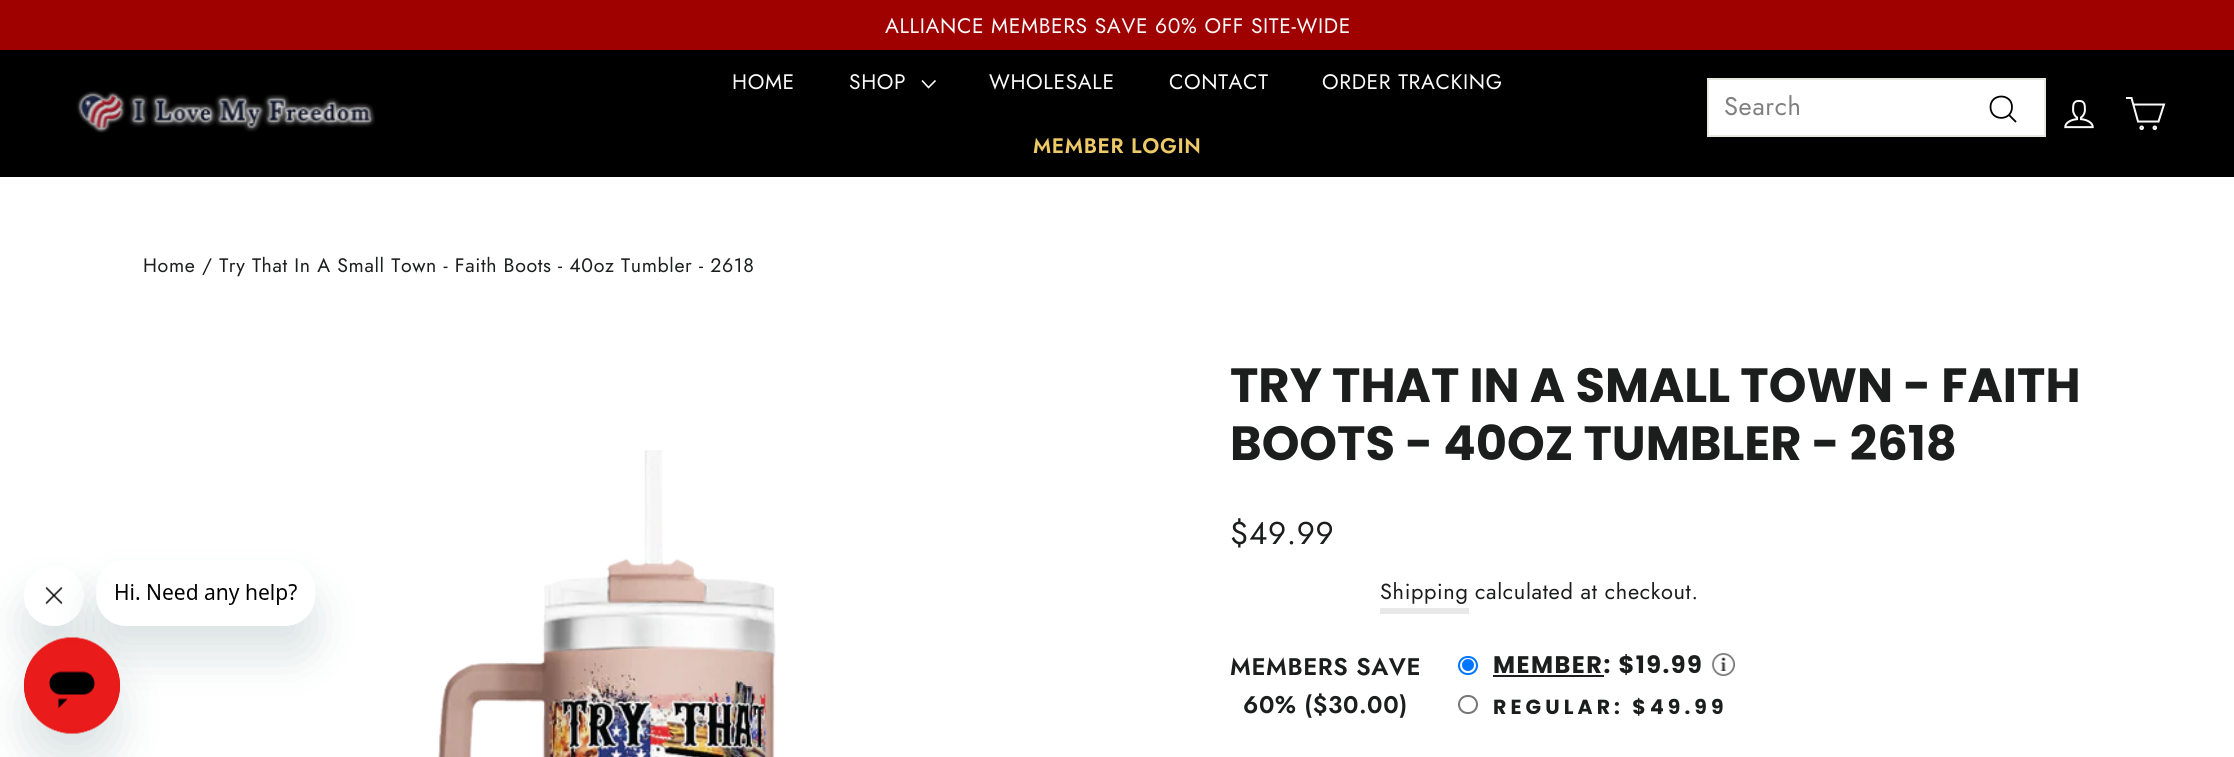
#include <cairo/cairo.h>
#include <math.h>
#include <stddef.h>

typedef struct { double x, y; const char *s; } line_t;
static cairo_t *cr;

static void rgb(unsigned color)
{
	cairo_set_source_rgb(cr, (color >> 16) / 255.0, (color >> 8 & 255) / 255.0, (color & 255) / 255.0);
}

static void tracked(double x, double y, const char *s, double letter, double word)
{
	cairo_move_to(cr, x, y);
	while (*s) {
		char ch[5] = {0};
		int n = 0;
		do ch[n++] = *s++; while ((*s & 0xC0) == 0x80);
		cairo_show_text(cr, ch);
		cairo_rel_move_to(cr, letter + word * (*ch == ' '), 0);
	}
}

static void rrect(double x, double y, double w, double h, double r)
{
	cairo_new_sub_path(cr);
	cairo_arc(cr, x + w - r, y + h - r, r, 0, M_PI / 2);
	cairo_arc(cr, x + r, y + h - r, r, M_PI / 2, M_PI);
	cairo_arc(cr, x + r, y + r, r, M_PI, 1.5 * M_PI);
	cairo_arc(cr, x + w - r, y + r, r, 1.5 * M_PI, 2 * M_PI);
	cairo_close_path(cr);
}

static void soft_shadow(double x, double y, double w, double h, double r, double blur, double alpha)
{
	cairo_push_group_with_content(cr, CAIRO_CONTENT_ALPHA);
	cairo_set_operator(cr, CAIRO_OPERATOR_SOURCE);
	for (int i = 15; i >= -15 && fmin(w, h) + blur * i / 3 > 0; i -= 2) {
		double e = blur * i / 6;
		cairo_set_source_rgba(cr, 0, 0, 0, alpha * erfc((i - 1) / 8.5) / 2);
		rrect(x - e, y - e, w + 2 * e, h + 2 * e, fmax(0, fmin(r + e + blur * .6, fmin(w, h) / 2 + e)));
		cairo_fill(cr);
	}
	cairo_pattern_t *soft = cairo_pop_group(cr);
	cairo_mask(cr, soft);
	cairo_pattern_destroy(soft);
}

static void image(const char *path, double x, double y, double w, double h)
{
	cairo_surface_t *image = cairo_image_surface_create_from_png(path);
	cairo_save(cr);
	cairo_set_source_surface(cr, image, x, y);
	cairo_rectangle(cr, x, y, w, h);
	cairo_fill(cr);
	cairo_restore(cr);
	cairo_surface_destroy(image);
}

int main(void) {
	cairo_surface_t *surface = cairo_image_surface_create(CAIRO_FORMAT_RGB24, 2234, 757);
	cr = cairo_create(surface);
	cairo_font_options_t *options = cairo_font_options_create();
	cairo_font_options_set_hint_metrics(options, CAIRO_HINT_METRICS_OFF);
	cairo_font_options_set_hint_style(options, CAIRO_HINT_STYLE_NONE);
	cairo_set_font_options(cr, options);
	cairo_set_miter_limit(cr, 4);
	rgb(0xffffff);
	cairo_paint(cr);
	rgb(0x9f0000);
	cairo_rectangle(cr, 0, 0, 2234, 50);
	cairo_fill(cr);
	rgb(0x000000);
	cairo_rectangle(cr, 0, 50, 2234, 127);
	cairo_fill(cr);
	image("img/1.png", 76, 91, 299, 42);
	cairo_new_path(cr);
	cairo_move_to(cr, 922, 80.5);
	cairo_line_to(cr, 928.5, 87.5);
	cairo_line_to(cr, 935.5, 80.5);
	rgb(0xfafafa);
	cairo_set_line_width(cr, 1.6);
	cairo_stroke(cr);
	rgb(0xffffff);
	cairo_rectangle(cr, 1708, 79, 337, 57);
	cairo_fill_preserve(cr);
	rgb(0xe8e8e1);
	cairo_set_line_width(cr, 2);
	cairo_stroke(cr);
	cairo_new_path(cr);
	cairo_move_to(cr, 2012, 107);
	cairo_curve_to(cr, 2012, 121.5, 1990.5, 121.5, 1990.5, 107);
	cairo_curve_to(cr, 1990.5, 93, 2012, 93, 2012, 107);
	cairo_close_path(cr);
	cairo_move_to(cr, 2016, 122);
	cairo_line_to(cr, 2009, 115);
	rgb(0x000000);
	cairo_set_line_width(cr, 1.8);
	cairo_stroke(cr);
	image("img/2.png", 2064, 99, 30, 30);
	cairo_new_path(cr);
	cairo_move_to(cr, 2133, 104.5);
	cairo_line_to(cr, 2164, 104.5);
	cairo_line_to(cr, 2158.5, 121.5);
	cairo_line_to(cr, 2138, 121.5);
	cairo_line_to(cr, 2131.5, 98);
	cairo_line_to(cr, 2126, 98);
	rgb(0xfafafa);
	cairo_set_line_width(cr, 2);
	cairo_stroke(cr);
	cairo_arc(cr, 2141.7, 127.8, 1.3, 0, 2 * M_PI);
	cairo_stroke(cr);
	cairo_arc(cr, 2154.8, 127.8, 1.3, 0, 2 * M_PI);
	cairo_stroke(cr);
	image("img/3.png", 438, 450, 338, 307);
	rgb(0xe8e8e8);
	cairo_rectangle(cr, 1380, 608, 89, 6);
	cairo_fill(cr);
	rrect(1459, 657, 18, 17, 8.5);
	rgb(0x0075ff);
	cairo_stroke(cr);
	cairo_arc(cr, 1468, 665, 6, 0, 2 * M_PI);
	cairo_fill(cr);
	rgb(0x1c1d1d);
	cairo_rectangle(cr, 1493, 675, 111, 2);
	cairo_fill(cr);
	image("img/4.png", 1711, 653, 24, 23);
	rrect(1459, 696, 18, 17, 8.5);
	rgb(0x767676);
	cairo_stroke(cr);
	cairo_save(cr);
	cairo_set_fill_rule(cr, CAIRO_FILL_RULE_EVEN_ODD);
	cairo_new_path(cr);
	cairo_move_to(cr, 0, 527);
	cairo_line_to(cr, 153, 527);
	cairo_line_to(cr, 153, 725);
	cairo_line_to(cr, 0, 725);
	cairo_close_path(cr);
	cairo_move_to(cr, 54, 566);
	cairo_curve_to(cr, 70.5, 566, 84, 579.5, 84, 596);
	cairo_curve_to(cr, 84, 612.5, 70.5, 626, 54, 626);
	cairo_curve_to(cr, 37.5, 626, 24, 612.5, 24, 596);
	cairo_curve_to(cr, 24, 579.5, 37.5, 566, 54, 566);
	cairo_close_path(cr);
	cairo_clip(cr);
	rgb(0x17494d);
	soft_shadow(24, 596, 60, 60, 30, 22.5, 0.15);
	cairo_restore(cr);
	image("img/6.png", 43, 586, 22, 40);
	cairo_save(cr);
	cairo_set_fill_rule(cr, CAIRO_FILL_RULE_EVEN_ODD);
	cairo_new_path(cr);
	cairo_move_to(cr, 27, 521);
	cairo_line_to(cr, 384, 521);
	cairo_line_to(cr, 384, 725);
	cairo_line_to(cr, 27, 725);
	cairo_close_path(cr);
	cairo_move_to(cr, 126, 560);
	cairo_line_to(cr, 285, 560);
	cairo_curve_to(cr, 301.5, 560, 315, 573.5, 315, 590);
	cairo_line_to(cr, 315, 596);
	cairo_curve_to(cr, 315, 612.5, 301.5, 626, 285, 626);
	cairo_line_to(cr, 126, 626);
	cairo_curve_to(cr, 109.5, 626, 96, 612.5, 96, 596);
	cairo_line_to(cr, 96, 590);
	cairo_curve_to(cr, 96, 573.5, 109.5, 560, 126, 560);
	cairo_close_path(cr);
	cairo_clip(cr);
	rgb(0x17494d);
	soft_shadow(96, 590, 219, 66, 30, 22.5, 0.15);
	cairo_restore(cr);
	image("img/5.png", 97, 584, 200, 41);
	rgb(0x17494d);
	soft_shadow(24, 668, 96, 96, 48, 22.5, 0.15);
	image("img/7.png", 24, 637, 96, 97);
	cairo_select_font_face(cr, "Jost", CAIRO_FONT_SLANT_NORMAL, CAIRO_FONT_WEIGHT_NORMAL);
	cairo_set_font_size(cr, 21);
	rgb(0xfafafa);
	{
		static const line_t items[] = {
			{885, 33, "ALLIANCE MEMBERS SAVE 60% OFF SITE-WIDE"},
			{732, 89, "HOME"},
			{849, 89, "SHOP"},
			{989, 89, "WHOLESALE"},
			{1169, 89, "CONTACT"},
			{1322, 89, "ORDER TRACKING"},
		};
		for (size_t i = 0; i < sizeof items / sizeof *items; i++) {
			tracked(items[i].x, items[i].y, items[i].s, 0.65, 0);
		}
	}
	cairo_select_font_face(cr, "Jost SemiBold", CAIRO_FONT_SLANT_NORMAL, CAIRO_FONT_WEIGHT_NORMAL);
	rgb(0xedc967);
	tracked(1033, 153, "MEMBER LOGIN", 0.65, 0);
	cairo_select_font_face(cr, "Jost", CAIRO_FONT_SLANT_NORMAL, CAIRO_FONT_WEIGHT_NORMAL);
	cairo_set_font_size(cr, 25.5);
	rgb(0x808080);
	tracked(1724, 115, "Search", 0.65, 0);
	cairo_set_font_size(cr, 19.5);
	rgb(0x1c1d1d);
	tracked(143, 272, "Home / Try That In A Small Town - Faith Boots - 40oz Tumbler - 2618", 0.65, 0);
	cairo_select_font_face(cr, "Poppins", CAIRO_FONT_SLANT_NORMAL, CAIRO_FONT_WEIGHT_BOLD);
	cairo_set_font_size(cr, 48);
	cairo_move_to(cr, 1230, 402);
	cairo_show_text(cr, "TRY THAT IN A SMALL TOWN - FAITH");
	cairo_move_to(cr, 1230, 460);
	cairo_show_text(cr, "BOOTS - 40OZ TUMBLER - 2618");
	cairo_select_font_face(cr, "Jost", CAIRO_FONT_SLANT_NORMAL, CAIRO_FONT_WEIGHT_NORMAL);
	cairo_set_font_size(cr, 31.5);
	tracked(1230, 544, "$49.99", 0.65, 0);
	cairo_set_font_size(cr, 21.75);
	tracked(1380, 599, "Shipping", 0.65, 0);
	tracked(1475, 599, "calculated at checkout.", 0.65, 0);
	cairo_select_font_face(cr, "Jost SemiBold", CAIRO_FONT_SLANT_NORMAL, CAIRO_FONT_WEIGHT_NORMAL);
	cairo_set_font_size(cr, 24);
	tracked(1230, 675, "MEMBERS SAVE", 0.6, 0);
	tracked(1243, 713, "60% ($30.00)", 0.6, 0);
	cairo_select_font_face(cr, "Poppins", CAIRO_FONT_SLANT_NORMAL, CAIRO_FONT_WEIGHT_BOLD);
	tracked(1493, 673, "MEMBER: $19.99", 1.5, 0);
	cairo_set_font_size(cr, 20.4);
	tracked(1493, 714, "REGULAR: $49.99", 4.1, 0);
	cairo_surface_write_to_png(surface, "page.png");
	cairo_font_options_destroy(options);
	cairo_destroy(cr);
	cairo_surface_destroy(surface);
	return 0;
}
